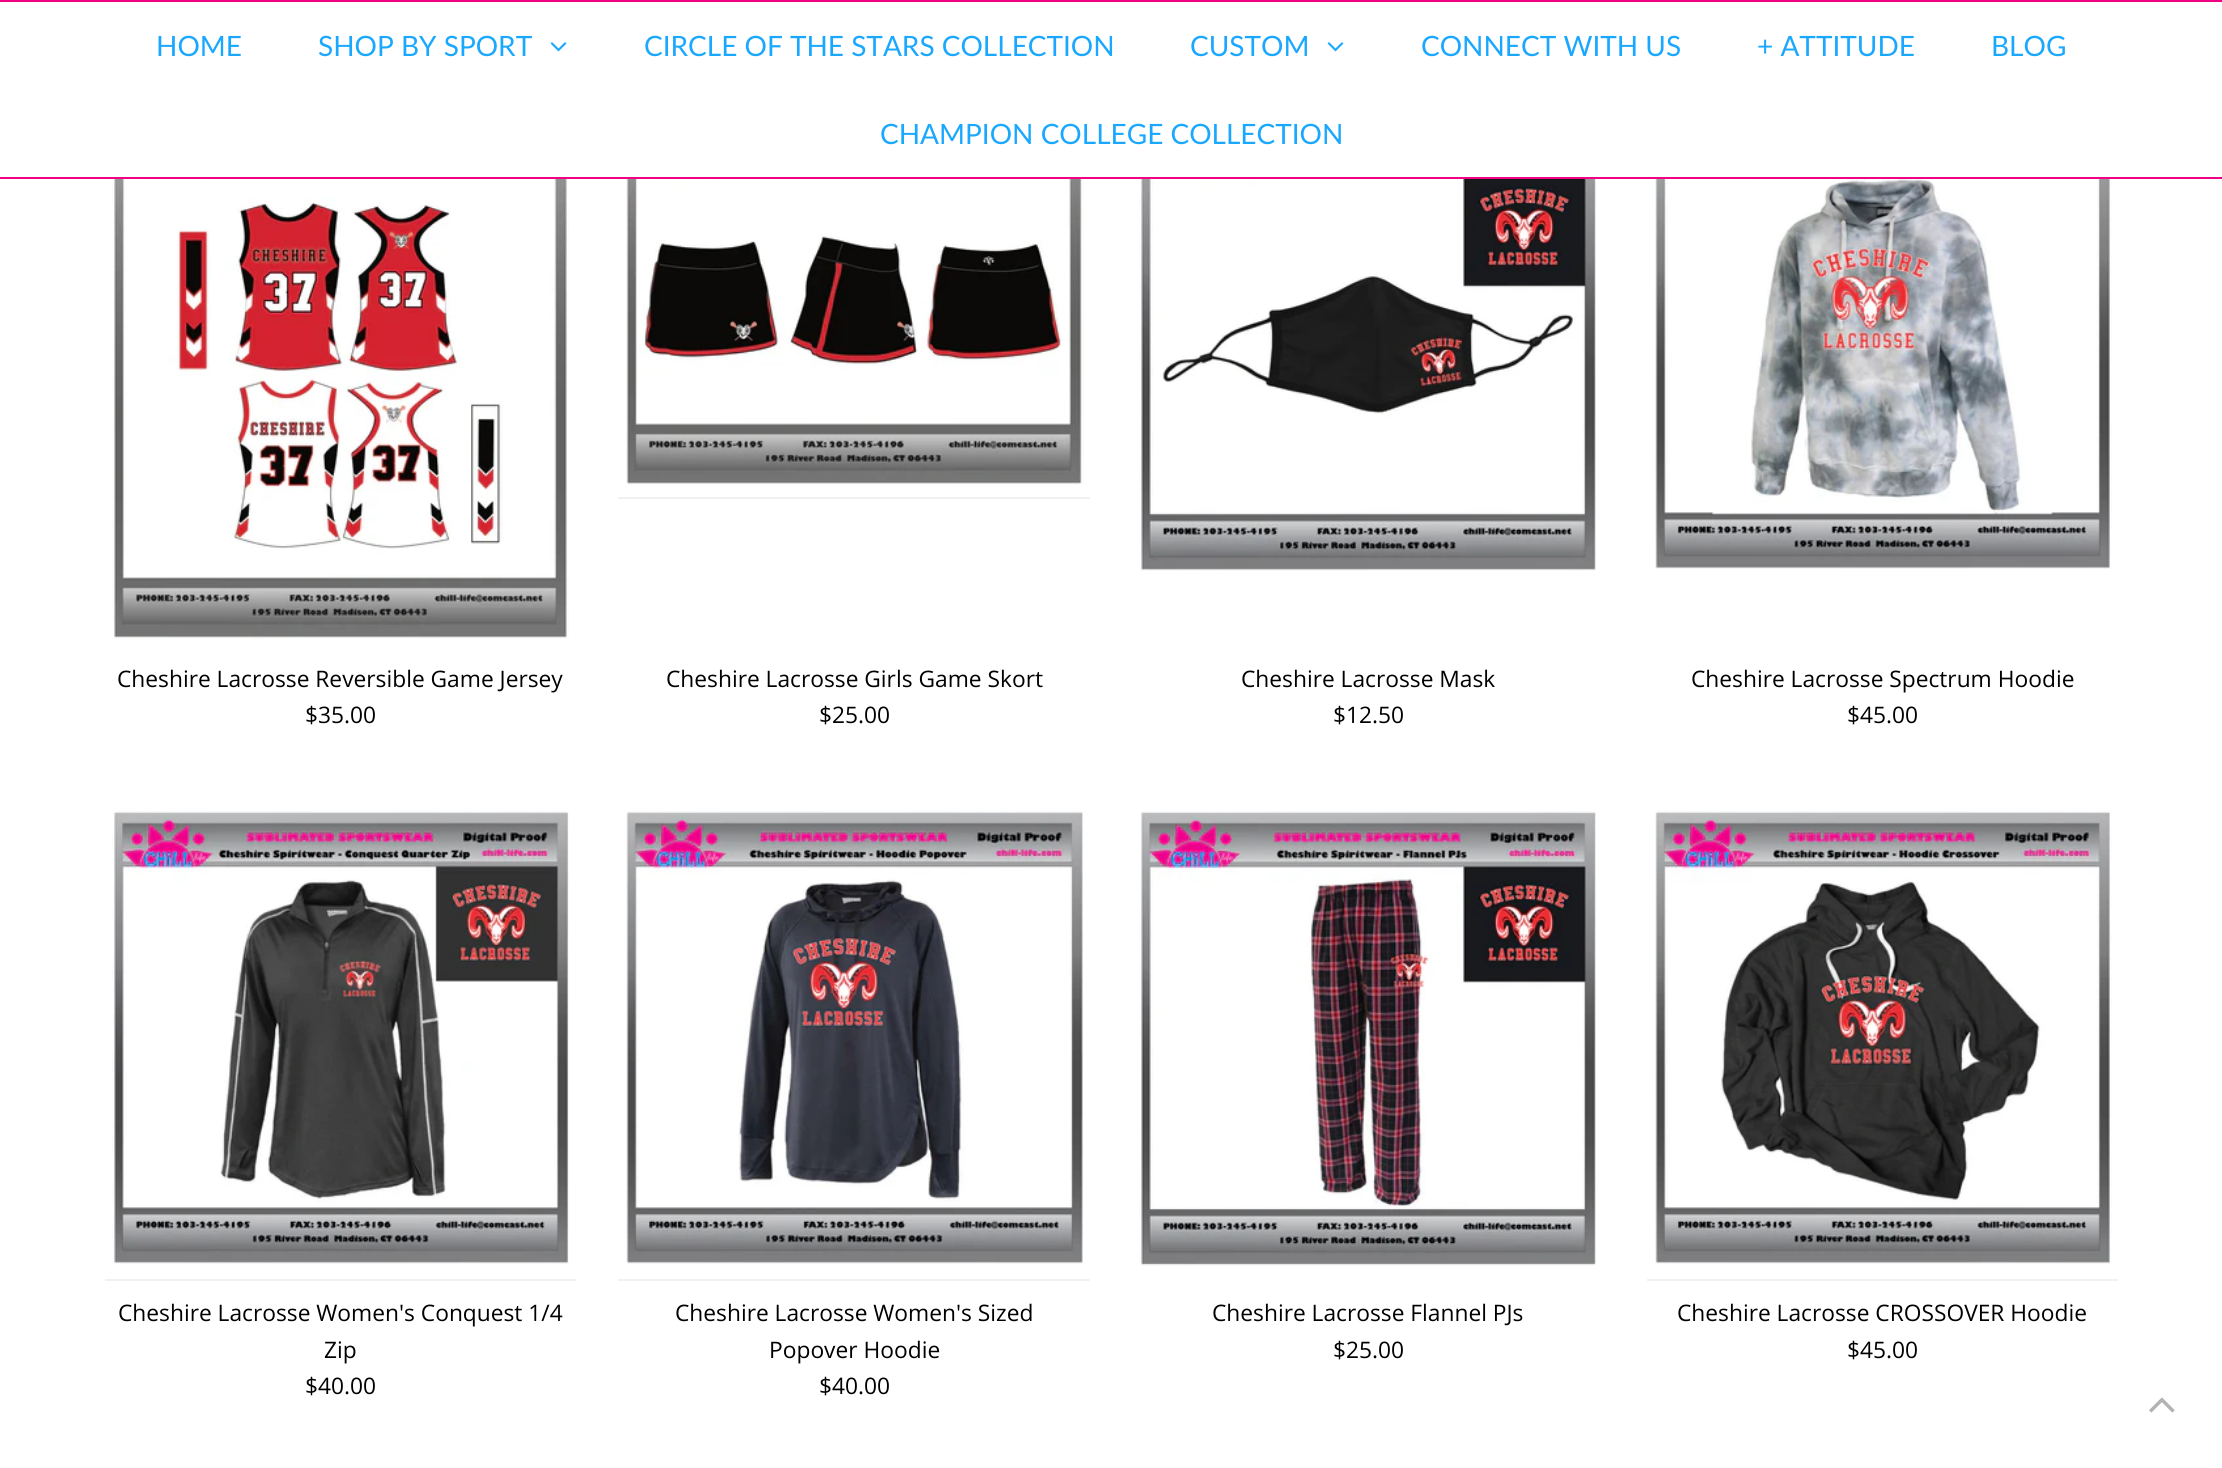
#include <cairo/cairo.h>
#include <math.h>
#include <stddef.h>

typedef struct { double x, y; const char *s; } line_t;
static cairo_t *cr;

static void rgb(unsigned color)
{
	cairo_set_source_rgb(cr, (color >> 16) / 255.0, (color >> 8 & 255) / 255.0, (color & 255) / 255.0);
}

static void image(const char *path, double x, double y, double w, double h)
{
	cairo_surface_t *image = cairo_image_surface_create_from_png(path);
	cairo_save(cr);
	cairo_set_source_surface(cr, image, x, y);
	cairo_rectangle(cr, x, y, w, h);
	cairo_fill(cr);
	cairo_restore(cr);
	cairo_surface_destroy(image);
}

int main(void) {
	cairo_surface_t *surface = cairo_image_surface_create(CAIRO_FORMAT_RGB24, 2222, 1468);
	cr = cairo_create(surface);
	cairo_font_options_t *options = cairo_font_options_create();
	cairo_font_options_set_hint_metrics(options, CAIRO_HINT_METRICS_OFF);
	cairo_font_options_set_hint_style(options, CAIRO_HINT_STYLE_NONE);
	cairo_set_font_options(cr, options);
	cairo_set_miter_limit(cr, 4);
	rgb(0xffffff);
	cairo_paint(cr);
	rgb(0xf00083);
	cairo_rectangle(cr, 0, 0, 2222, 2);
	cairo_fill(cr);
	cairo_rectangle(cr, 0, 177, 2222, 2);
	cairo_fill(cr);
	image("img/1.png", 550, 42, 17, 10);
	image("img/1.png", 1327, 42, 17, 10);
	image("img/2.png", 112, 179, 457, 460);
	rgb(0xf1f1f1);
	cairo_rectangle(cr, 618, 497, 472, 2);
	cairo_fill(cr);
	image("img/3.png", 626, 179, 459, 306);
	image("img/4.png", 1139, 179, 457, 392);
	image("img/5.png", 1655, 179, 457, 390);
	cairo_rectangle(cr, 105, 1279, 471, 2);
	cairo_fill(cr);
	image("img/6.png", 112, 811, 457, 453);
	cairo_rectangle(cr, 618, 1279, 472, 2);
	cairo_fill(cr);
	image("img/7.png", 626, 811, 457, 454);
	image("img/8.png", 1139, 811, 457, 455);
	cairo_rectangle(cr, 1647, 1279, 471, 2);
	cairo_fill(cr);
	image("img/9.png", 1655, 811, 457, 453);
	image("img/10.png", 2149, 1397, 26, 16);
	cairo_select_font_face(cr, "Lato", CAIRO_FONT_SLANT_NORMAL, CAIRO_FONT_WEIGHT_NORMAL);
	cairo_set_font_size(cr, 28);
	rgb(0x1aa8ff);
	{
		static const line_t items[] = {
			{156, 56, "HOME"},
			{318, 56, "SHOP BY SPORT"},
			{644, 56, "CIRCLE OF THE STARS COLLECTION"},
			{1190, 56, "CUSTOM"},
			{1421, 56, "CONNECT WITH US"},
			{1757, 56, "+ ATTITUDE"},
			{1991, 56, "BLOG"},
			{880, 144, "CHAMPION COLLEGE COLLECTION"},
		};
		for (size_t i = 0; i < sizeof items / sizeof *items; i++) {
			cairo_move_to(cr, items[i].x, items[i].y);
			cairo_show_text(cr, items[i].s);
		}
	}
	cairo_select_font_face(cr, "Open Sans", CAIRO_FONT_SLANT_NORMAL, CAIRO_FONT_WEIGHT_NORMAL);
	cairo_set_font_size(cr, 22.75);
	rgb(0x000000);
	{
		static const line_t items[] = {
			{117, 687, "Cheshire Lacrosse Reversible Game Jersey"},
			{305, 723, "$35.00"},
			{666, 687, "Cheshire Lacrosse Girls Game Skort"},
			{819, 723, "$25.00"},
			{1241, 687, "Cheshire Lacrosse Mask"},
			{1333, 723, "$12.50"},
			{1691, 687, "Cheshire Lacrosse Spectrum Hoodie"},
			{1847, 723, "$45.00"},
			{118, 1321, "Cheshire Lacrosse Women's Conquest 1/4"},
			{324, 1358, "Zip"},
			{305, 1394, "$40.00"},
			{675, 1321, "Cheshire Lacrosse Women's Sized"},
			{769, 1358, "Popover Hoodie"},
			{819, 1394, "$40.00"},
			{1212, 1321, "Cheshire Lacrosse Flannel PJs"},
			{1333, 1358, "$25.00"},
			{1677, 1321, "Cheshire Lacrosse CROSSOVER Hoodie"},
			{1847, 1358, "$45.00"},
		};
		for (size_t i = 0; i < sizeof items / sizeof *items; i++) {
			cairo_move_to(cr, items[i].x, items[i].y);
			cairo_show_text(cr, items[i].s);
		}
	}
	cairo_surface_write_to_png(surface, "page.png");
	cairo_font_options_destroy(options);
	cairo_destroy(cr);
	cairo_surface_destroy(surface);
	return 0;
}
